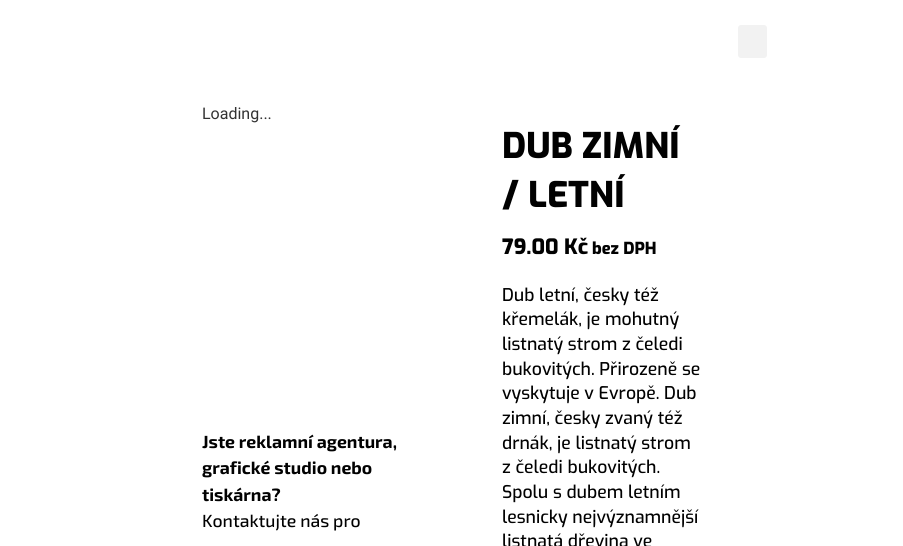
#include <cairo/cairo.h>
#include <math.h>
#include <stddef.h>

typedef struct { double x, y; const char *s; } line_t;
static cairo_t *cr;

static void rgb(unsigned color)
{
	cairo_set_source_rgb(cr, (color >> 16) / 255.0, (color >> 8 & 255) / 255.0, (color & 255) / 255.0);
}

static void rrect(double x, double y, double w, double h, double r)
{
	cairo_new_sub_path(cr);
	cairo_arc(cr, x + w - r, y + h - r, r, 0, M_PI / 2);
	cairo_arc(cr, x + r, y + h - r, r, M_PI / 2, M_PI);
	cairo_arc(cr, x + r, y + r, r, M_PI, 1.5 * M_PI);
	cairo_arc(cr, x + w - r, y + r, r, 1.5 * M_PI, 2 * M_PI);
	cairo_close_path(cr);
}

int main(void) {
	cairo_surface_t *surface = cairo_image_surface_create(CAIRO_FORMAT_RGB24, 903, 546);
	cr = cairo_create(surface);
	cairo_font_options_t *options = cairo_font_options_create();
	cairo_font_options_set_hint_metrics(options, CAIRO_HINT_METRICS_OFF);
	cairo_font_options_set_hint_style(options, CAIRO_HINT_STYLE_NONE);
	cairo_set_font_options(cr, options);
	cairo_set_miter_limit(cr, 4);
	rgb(0xffffff);
	cairo_paint(cr);
	rgb(0xf2f2f2);
	rrect(738, 25, 29, 33, 3);
	cairo_fill(cr);
	cairo_select_font_face(cr, "Roboto", CAIRO_FONT_SLANT_NORMAL, CAIRO_FONT_WEIGHT_NORMAL);
	cairo_set_font_size(cr, 16);
	rgb(0x333333);
	cairo_move_to(cr, 202, 119);
	cairo_show_text(cr, "Loading...");
	cairo_select_font_face(cr, "Exo 2", CAIRO_FONT_SLANT_NORMAL, CAIRO_FONT_WEIGHT_BOLD);
	cairo_set_font_size(cr, 17.6);
	rgb(0x010101);
	{
		static const line_t items[] = {
			{202, 448, "Jste reklamní agentura,"},
			{202, 474, "grafické studio nebo"},
			{202, 501, "tiskárna?"},
		};
		for (size_t i = 0; i < sizeof items / sizeof *items; i++) {
			cairo_move_to(cr, items[i].x, items[i].y);
			cairo_show_text(cr, items[i].s);
		}
	}
	cairo_select_font_face(cr, "Exo 2 Medium", CAIRO_FONT_SLANT_NORMAL, CAIRO_FONT_WEIGHT_NORMAL);
	cairo_move_to(cr, 202, 527);
	cairo_show_text(cr, "Kontaktujte nás pro");
	cairo_select_font_face(cr, "Exo ExtraBold", CAIRO_FONT_SLANT_NORMAL, CAIRO_FONT_WEIGHT_NORMAL);
	cairo_set_font_size(cr, 35.25);
	cairo_move_to(cr, 502, 158);
	cairo_show_text(cr, "DUB ZIMNÍ");
	cairo_move_to(cr, 502, 207);
	cairo_show_text(cr, "/ LETNÍ");
	cairo_set_font_size(cr, 21);
	cairo_move_to(cr, 502, 254);
	cairo_show_text(cr, "79.00 Kč");
	cairo_set_font_size(cr, 16.5);
	cairo_move_to(cr, 592, 254);
	cairo_show_text(cr, "bez DPH");
	cairo_select_font_face(cr, "Exo Medium", CAIRO_FONT_SLANT_NORMAL, CAIRO_FONT_WEIGHT_NORMAL);
	cairo_set_font_size(cr, 17.6);
	{
		static const line_t items[] = {
			{502, 301, "Dub letní, česky též"},
			{502, 325, "křemelák, je mohutný"},
			{502, 350, "listnatý strom z čeledi"},
			{502, 375, "bukovitých. Přirozeně se"},
			{502, 399, "vyskytuje v Evropě. Dub"},
			{502, 424, "zimní, česky zvaný též"},
			{502, 449, "drnák, je listnatý strom"},
			{502, 473, "z čeledi bukovitých."},
			{502, 498, "Spolu s dubem letním"},
			{502, 523, "lesnicky nejvýznamnější"},
			{502, 547, "listnatá dřevina ve"},
		};
		for (size_t i = 0; i < sizeof items / sizeof *items; i++) {
			cairo_move_to(cr, items[i].x, items[i].y);
			cairo_show_text(cr, items[i].s);
		}
	}
	cairo_surface_write_to_png(surface, "page.png");
	cairo_font_options_destroy(options);
	cairo_destroy(cr);
	cairo_surface_destroy(surface);
	return 0;
}
